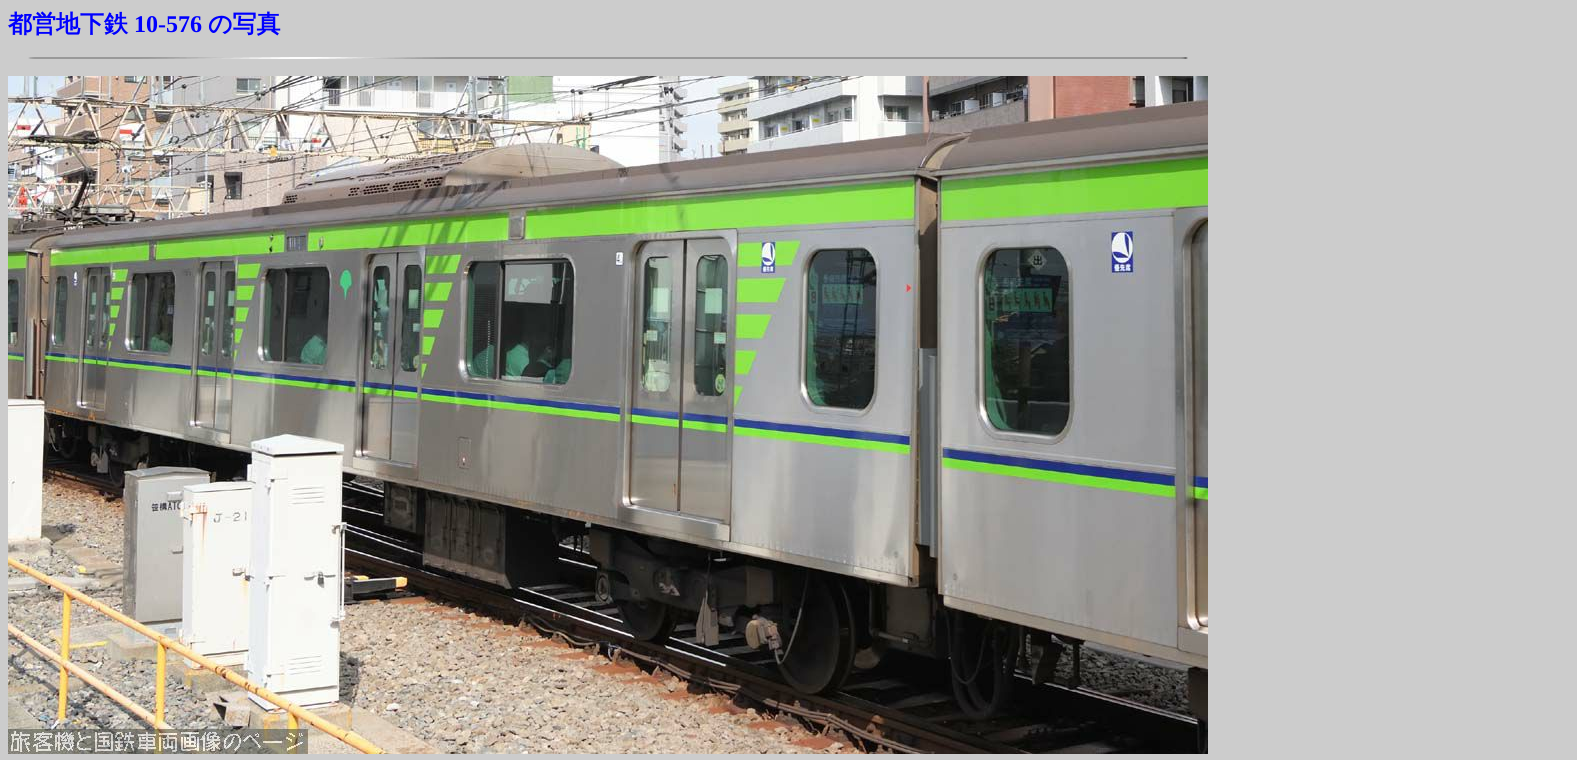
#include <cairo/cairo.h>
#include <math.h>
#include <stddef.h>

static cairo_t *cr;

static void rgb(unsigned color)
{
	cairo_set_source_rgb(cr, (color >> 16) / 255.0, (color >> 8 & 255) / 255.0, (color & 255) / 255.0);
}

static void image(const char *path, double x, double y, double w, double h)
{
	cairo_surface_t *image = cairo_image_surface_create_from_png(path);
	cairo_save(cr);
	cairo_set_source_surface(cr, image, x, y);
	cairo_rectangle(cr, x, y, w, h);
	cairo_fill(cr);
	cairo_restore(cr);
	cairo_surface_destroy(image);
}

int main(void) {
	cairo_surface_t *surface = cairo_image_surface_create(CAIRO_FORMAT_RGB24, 1577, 760);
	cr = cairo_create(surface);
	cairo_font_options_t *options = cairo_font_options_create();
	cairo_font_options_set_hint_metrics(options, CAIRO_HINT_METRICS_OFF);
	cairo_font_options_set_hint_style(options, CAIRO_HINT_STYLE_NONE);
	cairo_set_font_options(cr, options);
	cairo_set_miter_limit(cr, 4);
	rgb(0xcccccc);
	cairo_paint(cr);
	image("img/1.png", 28, 57, 1160, 2);
	image("img/2.png", 8, 76, 1200, 678);
	cairo_select_font_face(cr, "WenQuanYi Zen Hei", CAIRO_FONT_SLANT_NORMAL, CAIRO_FONT_WEIGHT_BOLD);
	cairo_set_font_size(cr, 24);
	rgb(0x0000ff);
	cairo_move_to(cr, 8, 32);
	cairo_show_text(cr, "都営地下鉄");
	cairo_select_font_face(cr, "Liberation Serif", CAIRO_FONT_SLANT_NORMAL, CAIRO_FONT_WEIGHT_BOLD);
	cairo_move_to(cr, 134, 32);
	cairo_show_text(cr, "10-576");
	cairo_select_font_face(cr, "WenQuanYi Zen Hei", CAIRO_FONT_SLANT_NORMAL, CAIRO_FONT_WEIGHT_BOLD);
	cairo_move_to(cr, 208, 32);
	cairo_show_text(cr, "の写真");
	cairo_surface_write_to_png(surface, "page.png");
	cairo_font_options_destroy(options);
	cairo_destroy(cr);
	cairo_surface_destroy(surface);
	return 0;
}
